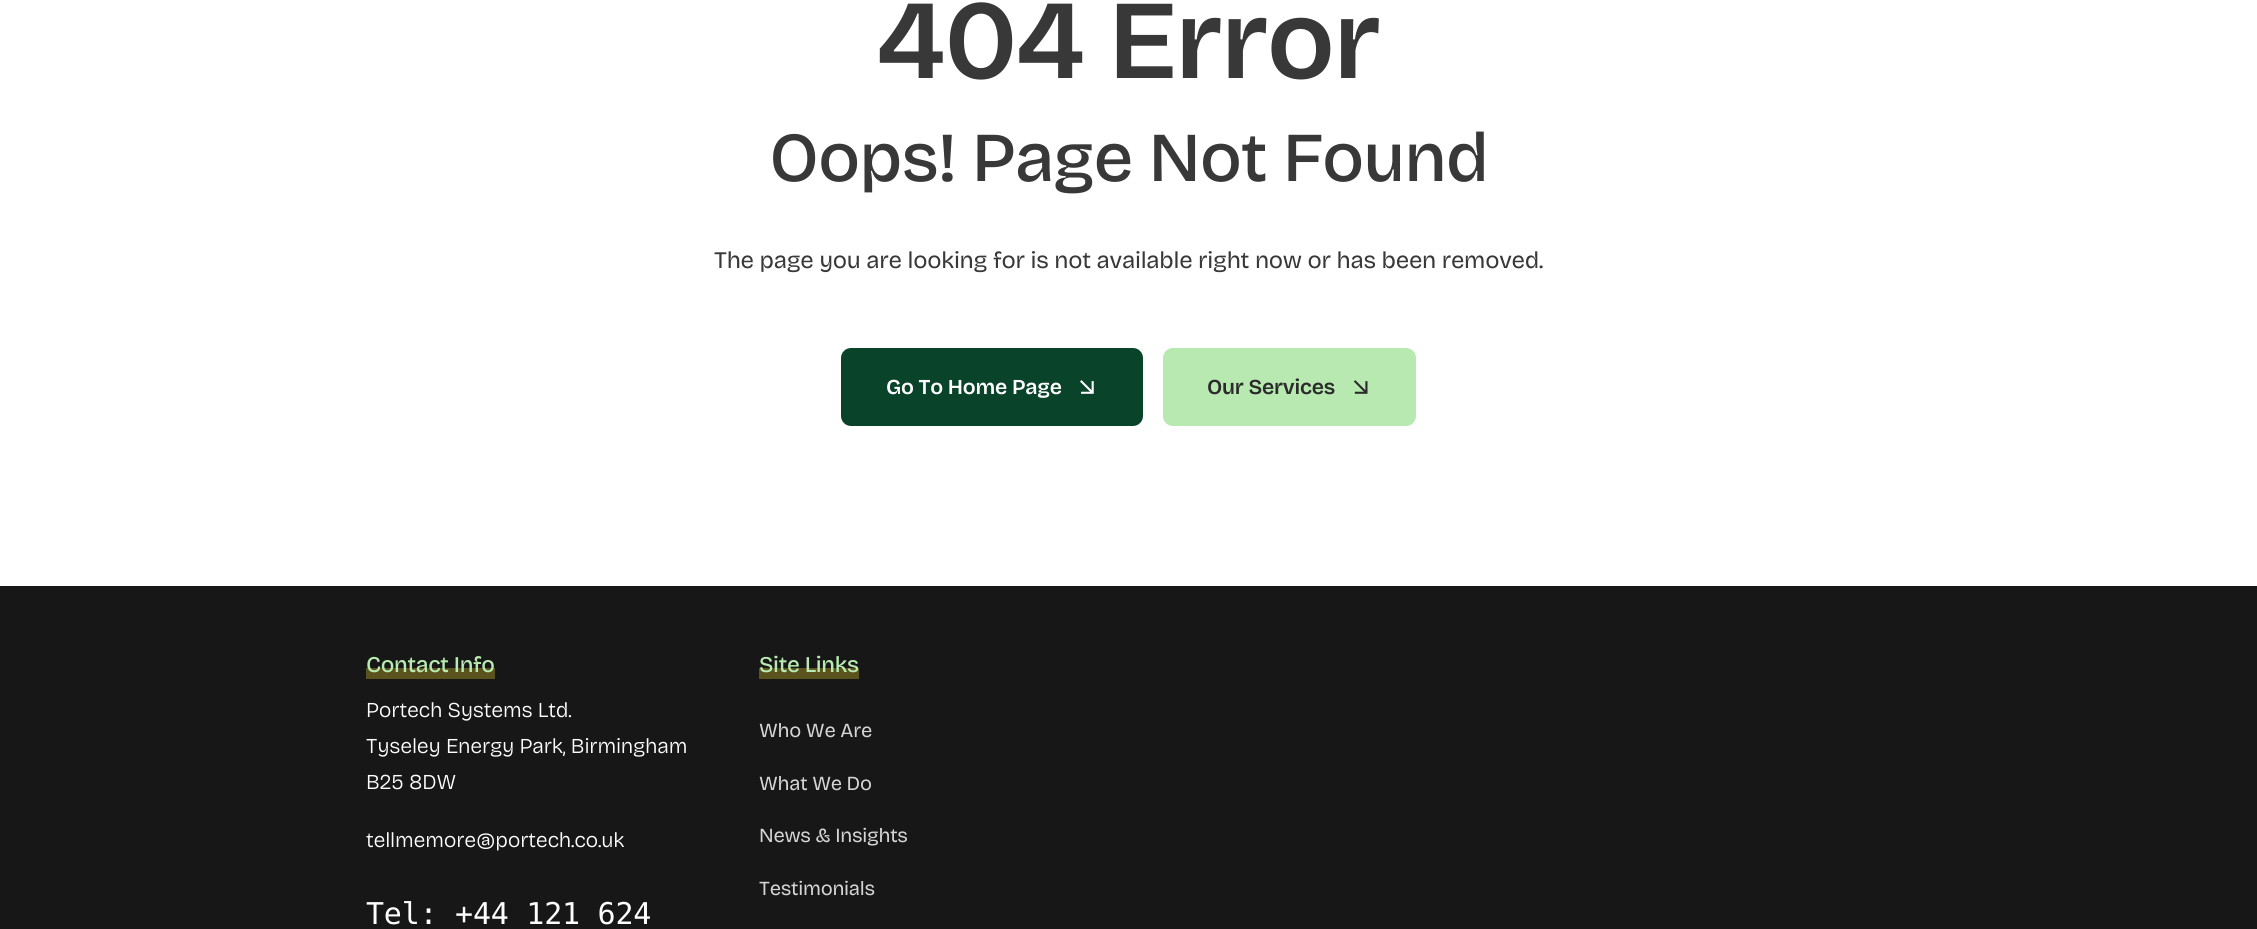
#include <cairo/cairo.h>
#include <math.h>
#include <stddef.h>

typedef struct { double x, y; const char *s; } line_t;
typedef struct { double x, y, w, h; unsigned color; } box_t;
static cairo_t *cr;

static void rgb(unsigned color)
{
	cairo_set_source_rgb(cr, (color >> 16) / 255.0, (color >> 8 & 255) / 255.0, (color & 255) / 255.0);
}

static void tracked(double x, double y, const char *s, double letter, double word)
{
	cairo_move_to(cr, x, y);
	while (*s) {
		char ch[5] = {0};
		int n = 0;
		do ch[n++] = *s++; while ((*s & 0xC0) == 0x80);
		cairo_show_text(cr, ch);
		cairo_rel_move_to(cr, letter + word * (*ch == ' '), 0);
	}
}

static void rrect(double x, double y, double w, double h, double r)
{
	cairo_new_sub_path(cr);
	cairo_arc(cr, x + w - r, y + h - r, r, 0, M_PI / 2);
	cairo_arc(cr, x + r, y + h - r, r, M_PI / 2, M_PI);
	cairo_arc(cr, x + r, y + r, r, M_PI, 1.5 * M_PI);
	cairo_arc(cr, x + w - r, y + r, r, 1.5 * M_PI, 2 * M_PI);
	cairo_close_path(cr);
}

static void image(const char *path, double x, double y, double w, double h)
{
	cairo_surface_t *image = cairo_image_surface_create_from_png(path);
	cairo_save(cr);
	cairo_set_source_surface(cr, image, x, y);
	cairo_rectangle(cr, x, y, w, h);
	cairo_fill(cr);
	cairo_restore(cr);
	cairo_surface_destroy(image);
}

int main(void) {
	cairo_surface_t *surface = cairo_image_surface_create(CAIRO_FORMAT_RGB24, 2257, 929);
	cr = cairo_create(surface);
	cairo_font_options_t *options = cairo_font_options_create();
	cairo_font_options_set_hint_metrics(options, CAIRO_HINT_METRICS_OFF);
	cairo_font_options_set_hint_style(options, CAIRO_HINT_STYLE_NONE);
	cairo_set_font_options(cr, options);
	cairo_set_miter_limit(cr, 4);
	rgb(0xffffff);
	cairo_paint(cr);
	rgb(0x09432a);
	rrect(841, 348, 302, 78, 10);
	cairo_fill(cr);
	image("img/1.png", 1080, 380, 14, 14);
	rgb(0xb7e9b0);
	rrect(1163, 348, 253, 78, 10);
	cairo_fill(cr);
	image("img/2.png", 1353, 380, 15, 14);
	{
		static const box_t items[] = {
			{0, 586, 2257, 343, 0x171717},
			{366, 668, 129, 11, 0x5b531e},
			{759, 668, 100, 11, 0x5b531e},
		};
		for (size_t i = 0; i < sizeof items / sizeof *items; i++) {
			rgb(items[i].color);
			cairo_rectangle(cr, items[i].x, items[i].y, items[i].w, items[i].h);
			cairo_fill(cr);
		}
	}
	cairo_select_font_face(cr, "Bricolage Grotesque SemiBold", CAIRO_FONT_SLANT_NORMAL, CAIRO_FONT_WEIGHT_NORMAL);
	cairo_set_font_size(cr, 112.5);
	rgb(0x383838);
	tracked(877, 78, "404 Error", -1.75, 0);
	cairo_select_font_face(cr, "Bricolage Grotesque Medium", CAIRO_FONT_SLANT_NORMAL, CAIRO_FONT_WEIGHT_NORMAL);
	cairo_set_font_size(cr, 70);
	tracked(769, 181, "Oops! Page Not Found", -1.05, 0);
	cairo_select_font_face(cr, "Bricolage Grotesque", CAIRO_FONT_SLANT_NORMAL, CAIRO_FONT_WEIGHT_NORMAL);
	cairo_set_font_size(cr, 23.75);
	tracked(714, 268, "The page you are looking for is not available right now or has been removed.", -0.25, 0);
	cairo_select_font_face(cr, "Bricolage Grotesque SemiBold", CAIRO_FONT_SLANT_NORMAL, CAIRO_FONT_WEIGHT_NORMAL);
	cairo_set_font_size(cr, 21.25);
	rgb(0xffffff);
	tracked(886, 394, "Go To Home Page", -0.2, 0);
	rgb(0x2b2b2b);
	tracked(1207, 394, "Our Services", -0.2, 0);
	cairo_select_font_face(cr, "Bricolage Grotesque Medium", CAIRO_FONT_SLANT_NORMAL, CAIRO_FONT_WEIGHT_NORMAL);
	cairo_set_font_size(cr, 22.5);
	rgb(0xb7e9b0);
	tracked(366, 672, "Contact Info", -0.3, 0);
	cairo_select_font_face(cr, "Bricolage Grotesque Light", CAIRO_FONT_SLANT_NORMAL, CAIRO_FONT_WEIGHT_NORMAL);
	cairo_set_font_size(cr, 21.25);
	rgb(0xffffff);
	{
		static const line_t items[] = {
			{366, 717, "Portech Systems Ltd."},
			{366, 753, "Tyseley Energy Park, Birmingham"},
			{366, 789, "B25 8DW"},
			{366, 847, "tellmemore@portech.co.uk"},
		};
		for (size_t i = 0; i < sizeof items / sizeof *items; i++) {
			tracked(items[i].x, items[i].y, items[i].s, -0.2, 0);
		}
	}
	cairo_select_font_face(cr, "DejaVu Sans Mono", CAIRO_FONT_SLANT_NORMAL, CAIRO_FONT_WEIGHT_NORMAL);
	cairo_set_font_size(cr, 30);
	tracked(366, 924, "Tel: +44 121 624", -0.25, 0);
	cairo_select_font_face(cr, "Bricolage Grotesque Medium", CAIRO_FONT_SLANT_NORMAL, CAIRO_FONT_WEIGHT_NORMAL);
	cairo_set_font_size(cr, 22.5);
	rgb(0xb7e9b0);
	tracked(759, 672, "Site Links", -0.3, 0);
	cairo_select_font_face(cr, "Bricolage Grotesque", CAIRO_FONT_SLANT_NORMAL, CAIRO_FONT_WEIGHT_NORMAL);
	cairo_set_font_size(cr, 20);
	rgb(0xd4d4d4);
	{
		static const line_t items[] = {
			{759, 737, "Who We Are"},
			{759, 790, "What We Do"},
			{759, 842, "News & Insights"},
			{759, 895, "Testimonials"},
		};
		for (size_t i = 0; i < sizeof items / sizeof *items; i++) {
			tracked(items[i].x, items[i].y, items[i].s, -0.25, 0);
		}
	}
	cairo_surface_write_to_png(surface, "page.png");
	cairo_font_options_destroy(options);
	cairo_destroy(cr);
	cairo_surface_destroy(surface);
	return 0;
}
